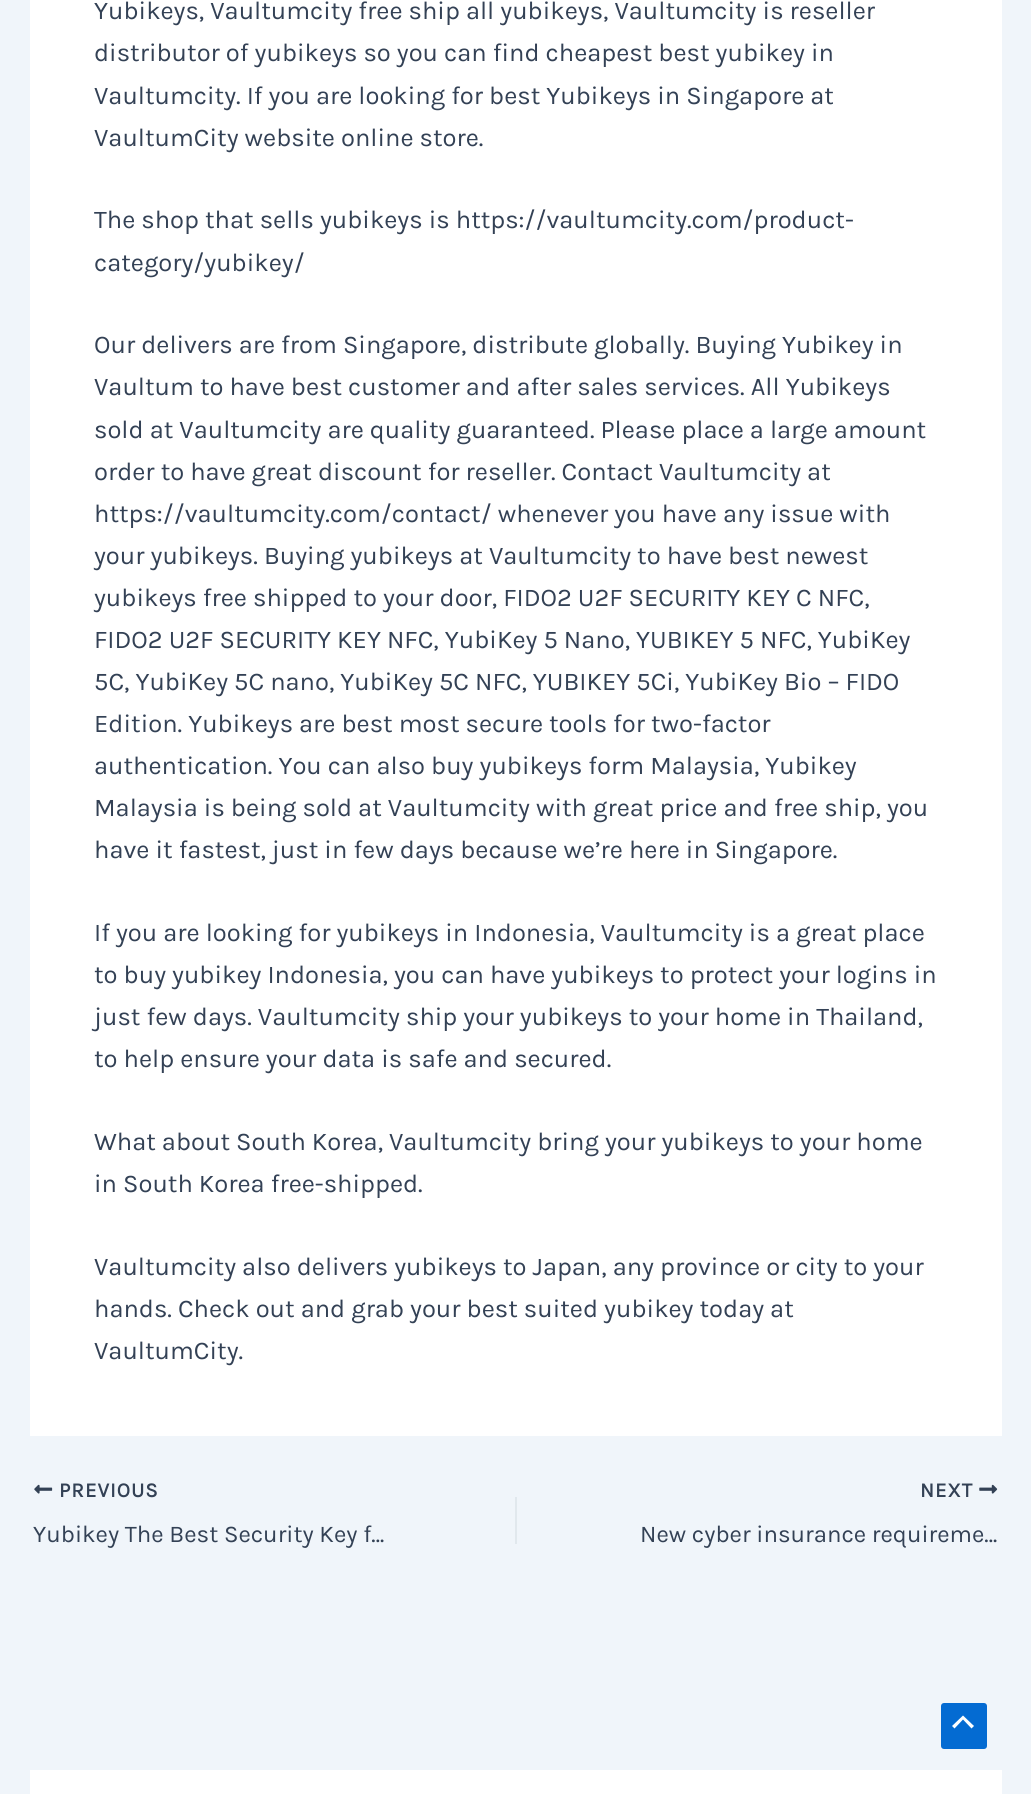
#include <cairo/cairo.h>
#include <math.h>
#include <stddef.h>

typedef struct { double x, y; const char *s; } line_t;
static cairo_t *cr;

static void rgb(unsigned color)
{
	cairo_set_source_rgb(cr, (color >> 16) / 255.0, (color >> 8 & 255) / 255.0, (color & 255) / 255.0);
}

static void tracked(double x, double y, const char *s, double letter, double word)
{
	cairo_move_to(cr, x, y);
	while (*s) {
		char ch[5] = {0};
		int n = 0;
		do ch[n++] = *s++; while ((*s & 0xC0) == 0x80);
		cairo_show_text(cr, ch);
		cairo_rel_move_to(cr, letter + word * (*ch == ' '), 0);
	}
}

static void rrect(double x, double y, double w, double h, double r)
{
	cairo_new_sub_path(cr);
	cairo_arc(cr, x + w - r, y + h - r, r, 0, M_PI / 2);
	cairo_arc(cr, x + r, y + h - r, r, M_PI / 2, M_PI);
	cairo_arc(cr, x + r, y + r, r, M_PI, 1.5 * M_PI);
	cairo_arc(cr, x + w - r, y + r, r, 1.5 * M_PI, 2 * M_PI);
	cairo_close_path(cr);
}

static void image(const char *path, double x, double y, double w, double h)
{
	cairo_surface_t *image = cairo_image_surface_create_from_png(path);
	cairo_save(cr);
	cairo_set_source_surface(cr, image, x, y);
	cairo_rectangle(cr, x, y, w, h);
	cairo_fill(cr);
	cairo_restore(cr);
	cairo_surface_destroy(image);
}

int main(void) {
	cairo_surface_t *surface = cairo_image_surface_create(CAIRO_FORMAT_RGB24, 1031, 1794);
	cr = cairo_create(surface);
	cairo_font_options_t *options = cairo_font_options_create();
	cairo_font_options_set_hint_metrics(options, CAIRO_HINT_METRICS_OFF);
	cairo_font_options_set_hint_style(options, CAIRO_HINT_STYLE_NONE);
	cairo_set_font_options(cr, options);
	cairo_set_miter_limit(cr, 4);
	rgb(0xf0f5fa);
	cairo_paint(cr);
	rgb(0xffffff);
	cairo_rectangle(cr, 30, 0, 972, 1436);
	cairo_fill(cr);
	image("img/1.png", 34, 1484, 19, 10);
	rgb(0xe1e8ed);
	cairo_rectangle(cr, 515, 1497, 2, 47);
	cairo_fill(cr);
	image("img/2.png", 979, 1484, 19, 10);
	rgb(0xffffff);
	cairo_rectangle(cr, 30, 1770, 972, 24);
	cairo_fill(cr);
	rgb(0x046bd2);
	rrect(941, 1703, 46, 46, 3);
	cairo_fill(cr);
	rgb(0xffffff);
	cairo_new_path(cr);
	cairo_move_to(cr, 974, 1726);
	cairo_line_to(cr, 963, 1715.5);
	cairo_line_to(cr, 952, 1726);
	cairo_line_to(cr, 954.5, 1728.5);
	cairo_line_to(cr, 963, 1719.5);
	cairo_line_to(cr, 971.5, 1728.5);
	cairo_close_path(cr);
	cairo_fill(cr);
	cairo_select_font_face(cr, "Karla", CAIRO_FONT_SLANT_NORMAL, CAIRO_FONT_WEIGHT_NORMAL);
	cairo_set_font_size(cr, 25.5);
	rgb(0x334155);
	{
		static const line_t items[] = {
			{94, 19, "Yubikeys, Vaultumcity free ship all yubikeys, Vaultumcity is reseller"},
			{94, 61, "distributor of yubikeys so you can find cheapest best yubikey in"},
			{94, 104, "Vaultumcity. If you are looking for best Yubikeys in Singapore at"},
			{94, 146, "VaultumCity website online store."},
			{94, 228, "The shop that sells yubikeys is https://vaultumcity.com/product-"},
			{94, 271, "category/yubikey/"},
			{94, 353, "Our delivers are from Singapore, distribute globally. Buying Yubikey in"},
			{94, 395, "Vaultum to have best customer and after sales services. All Yubikeys"},
			{94, 438, "sold at Vaultumcity are quality guaranteed. Please place a large amount"},
			{94, 480, "order to have great discount for reseller. Contact Vaultumcity at"},
			{94, 522, "https://vaultumcity.com/contact/ whenever you have any issue with"},
			{94, 564, "your yubikeys. Buying yubikeys at Vaultumcity to have best newest"},
			{94, 606, "yubikeys free shipped to your door, FIDO2 U2F SECURITY KEY C NFC,"},
			{94, 648, "FIDO2 U2F SECURITY KEY NFC, YubiKey 5 Nano, YUBIKEY 5 NFC, YubiKey"},
			{94, 690, "5C, YubiKey 5C nano, YubiKey 5C NFC, YUBIKEY 5Ci, YubiKey Bio – FIDO"},
			{94, 732, "Edition. Yubikeys are best most secure tools for two-factor"},
			{94, 774, "authentication. You can also buy yubikeys form Malaysia, Yubikey"},
			{94, 816, "Malaysia is being sold at Vaultumcity with great price and free ship, you"},
			{94, 858, "have it fastest, just in few days because we’re here in Singapore."},
			{94, 941, "If you are looking for yubikeys in Indonesia, Vaultumcity is a great place"},
			{94, 983, "to buy yubikey Indonesia, you can have yubikeys to protect your logins in"},
			{94, 1025, "just few days. Vaultumcity ship your yubikeys to your home in Thailand,"},
			{94, 1067, "to help ensure your data is safe and secured."},
			{94, 1150, "What about South Korea, Vaultumcity bring your yubikeys to your home"},
			{94, 1192, "in South Korea free-shipped."},
			{94, 1275, "Vaultumcity also delivers yubikeys to Japan, any province or city to your"},
			{94, 1317, "hands. Check out and grab your best suited yubikey today at"},
			{94, 1359, "VaultumCity."},
		};
		for (size_t i = 0; i < sizeof items / sizeof *items; i++) {
			cairo_move_to(cr, items[i].x, items[i].y);
			cairo_show_text(cr, items[i].s);
		}
	}
	cairo_select_font_face(cr, "Karla", CAIRO_FONT_SLANT_NORMAL, CAIRO_FONT_WEIGHT_BOLD);
	cairo_set_font_size(cr, 20.5);
	tracked(59, 1497, "PREVIOUS", 1, 0);
	cairo_select_font_face(cr, "Karla", CAIRO_FONT_SLANT_NORMAL, CAIRO_FONT_WEIGHT_NORMAL);
	cairo_set_font_size(cr, 24);
	cairo_move_to(cr, 33, 1542);
	cairo_show_text(cr, "Yubikey The Best Security Key f…");
	cairo_select_font_face(cr, "Karla", CAIRO_FONT_SLANT_NORMAL, CAIRO_FONT_WEIGHT_BOLD);
	cairo_set_font_size(cr, 20.5);
	tracked(920, 1497, "NEXT", 1, 0);
	cairo_select_font_face(cr, "Karla", CAIRO_FONT_SLANT_NORMAL, CAIRO_FONT_WEIGHT_NORMAL);
	cairo_set_font_size(cr, 24);
	cairo_move_to(cr, 640, 1542);
	cairo_show_text(cr, "New cyber insurance requireme…");
	cairo_surface_write_to_png(surface, "page.png");
	cairo_font_options_destroy(options);
	cairo_destroy(cr);
	cairo_surface_destroy(surface);
	return 0;
}
